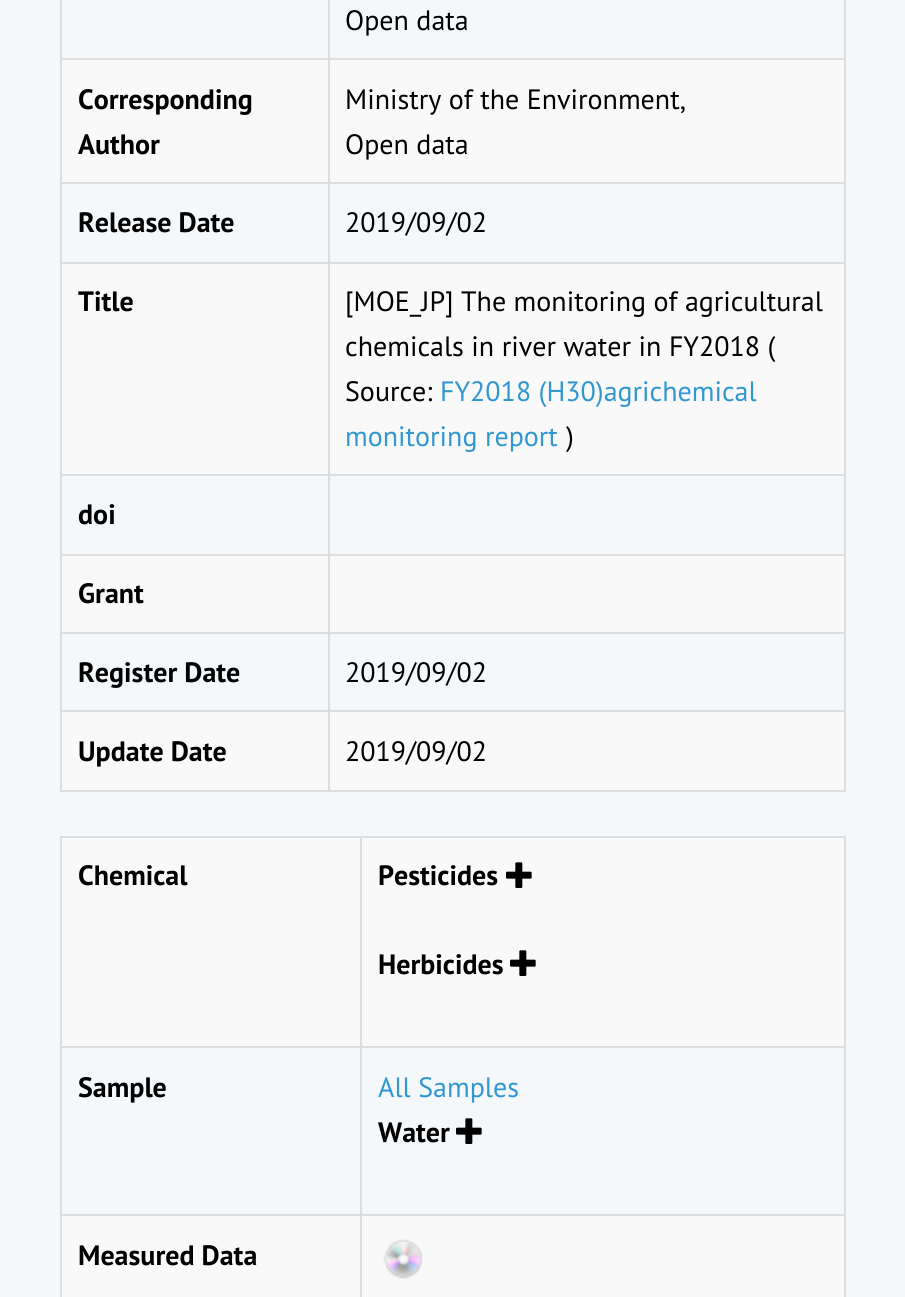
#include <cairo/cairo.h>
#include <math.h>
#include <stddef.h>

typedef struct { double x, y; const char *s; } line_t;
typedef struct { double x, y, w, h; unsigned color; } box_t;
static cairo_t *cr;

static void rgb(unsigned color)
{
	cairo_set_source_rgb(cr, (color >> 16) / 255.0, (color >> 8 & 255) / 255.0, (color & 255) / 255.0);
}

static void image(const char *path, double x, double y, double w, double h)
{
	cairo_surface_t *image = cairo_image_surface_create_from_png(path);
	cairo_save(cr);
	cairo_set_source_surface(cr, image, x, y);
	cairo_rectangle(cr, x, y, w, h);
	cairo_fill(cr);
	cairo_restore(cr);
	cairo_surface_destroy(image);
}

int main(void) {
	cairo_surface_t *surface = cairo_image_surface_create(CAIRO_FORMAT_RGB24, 905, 1297);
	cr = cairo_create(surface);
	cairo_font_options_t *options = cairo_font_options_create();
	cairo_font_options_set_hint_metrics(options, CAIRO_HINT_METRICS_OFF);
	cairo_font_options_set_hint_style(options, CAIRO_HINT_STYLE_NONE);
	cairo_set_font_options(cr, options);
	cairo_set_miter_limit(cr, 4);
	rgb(0xf5f8fa);
	cairo_paint(cr);
	{
		static const box_t items[] = {
			{844, 0, 2, 792, 0xdddddd},
			{60, 790, 786, 2, 0xdddddd},
			{60, 0, 2, 792, 0xdddddd},
			{328, 58, 518, 2, 0xdddddd},
			{62, 60, 782, 122, 0xf9f9f9},
			{328, 182, 518, 2, 0xdddddd},
			{328, 262, 518, 2, 0xdddddd},
			{62, 264, 782, 210, 0xf9f9f9},
			{328, 474, 518, 2, 0xdddddd},
			{328, 554, 518, 2, 0xdddddd},
			{62, 556, 782, 76, 0xf9f9f9},
			{328, 632, 518, 2, 0xdddddd},
			{328, 710, 518, 2, 0xdddddd},
			{62, 712, 782, 78, 0xf9f9f9},
			{328, 710, 2, 82, 0xdddddd},
			{60, 710, 270, 2, 0xdddddd},
			{328, 632, 2, 80, 0xdddddd},
			{60, 632, 270, 2, 0xdddddd},
			{328, 554, 2, 80, 0xdddddd},
			{60, 554, 270, 2, 0xdddddd},
			{328, 474, 2, 82, 0xdddddd},
			{60, 474, 270, 2, 0xdddddd},
			{328, 262, 2, 214, 0xdddddd},
			{60, 262, 270, 2, 0xdddddd},
			{328, 182, 2, 82, 0xdddddd},
			{60, 182, 270, 2, 0xdddddd},
			{328, 58, 2, 126, 0xdddddd},
			{60, 58, 270, 2, 0xdddddd},
			{328, 0, 2, 60, 0xdddddd},
			{60, 836, 786, 2, 0xdddddd},
			{844, 836, 2, 461, 0xdddddd},
			{60, 836, 2, 461, 0xdddddd},
			{62, 838, 782, 208, 0xf9f9f9},
			{360, 1046, 486, 2, 0xdddddd},
			{360, 1214, 486, 2, 0xdddddd},
			{62, 1216, 782, 81, 0xf9f9f9},
			{360, 1214, 2, 83, 0xdddddd},
			{60, 1214, 302, 2, 0xdddddd},
			{360, 1046, 2, 170, 0xdddddd},
			{60, 1046, 302, 2, 0xdddddd},
			{360, 836, 2, 212, 0xdddddd},
		};
		for (size_t i = 0; i < sizeof items / sizeof *items; i++) {
			rgb(items[i].color);
			cairo_rectangle(cr, items[i].x, items[i].y, items[i].w, items[i].h);
			cairo_fill(cr);
		}
	}
	image("img/1.png", 506, 862, 26, 26);
	image("img/1.png", 510, 950, 26, 26);
	image("img/2.png", 456, 1118, 26, 26);
	image("img/3.png", 383, 1239, 40, 40);
	cairo_select_font_face(cr, "PT Sans", CAIRO_FONT_SLANT_NORMAL, CAIRO_FONT_WEIGHT_NORMAL);
	cairo_set_font_size(cr, 28);
	rgb(0x000000);
	cairo_move_to(cr, 345, 30);
	cairo_show_text(cr, "Open data");
	cairo_select_font_face(cr, "PT Sans", CAIRO_FONT_SLANT_NORMAL, CAIRO_FONT_WEIGHT_BOLD);
	cairo_move_to(cr, 78, 109);
	cairo_show_text(cr, "Corresponding");
	cairo_move_to(cr, 78, 154);
	cairo_show_text(cr, "Author");
	cairo_select_font_face(cr, "PT Sans", CAIRO_FONT_SLANT_NORMAL, CAIRO_FONT_WEIGHT_NORMAL);
	cairo_move_to(cr, 345, 109);
	cairo_show_text(cr, "Ministry of the Environment,");
	cairo_move_to(cr, 345, 154);
	cairo_show_text(cr, "Open data");
	cairo_select_font_face(cr, "PT Sans", CAIRO_FONT_SLANT_NORMAL, CAIRO_FONT_WEIGHT_BOLD);
	cairo_move_to(cr, 78, 232);
	cairo_show_text(cr, "Release Date");
	cairo_select_font_face(cr, "PT Sans", CAIRO_FONT_SLANT_NORMAL, CAIRO_FONT_WEIGHT_NORMAL);
	cairo_move_to(cr, 345, 232);
	cairo_show_text(cr, "2019/09/02");
	cairo_select_font_face(cr, "PT Sans", CAIRO_FONT_SLANT_NORMAL, CAIRO_FONT_WEIGHT_BOLD);
	cairo_move_to(cr, 78, 311);
	cairo_show_text(cr, "Title");
	cairo_select_font_face(cr, "PT Sans", CAIRO_FONT_SLANT_NORMAL, CAIRO_FONT_WEIGHT_NORMAL);
	{
		static const line_t items[] = {
			{345, 311, "[MOE_JP] The monitoring of agricultural"},
			{345, 356, "chemicals in river water in FY2018 ("},
			{345, 401, "Source:"},
		};
		for (size_t i = 0; i < sizeof items / sizeof *items; i++) {
			cairo_move_to(cr, items[i].x, items[i].y);
			cairo_show_text(cr, items[i].s);
		}
	}
	rgb(0x3097d1);
	cairo_move_to(cr, 440, 401);
	cairo_show_text(cr, "FY2018 (H30)agrichemical");
	cairo_move_to(cr, 345, 446);
	cairo_show_text(cr, "monitoring report");
	rgb(0x000000);
	cairo_move_to(cr, 566, 446);
	cairo_show_text(cr, ")");
	cairo_select_font_face(cr, "PT Sans", CAIRO_FONT_SLANT_NORMAL, CAIRO_FONT_WEIGHT_BOLD);
	{
		static const line_t items[] = {
			{78, 524, "doi"},
			{78, 603, "Grant"},
			{78, 682, "Register Date"},
		};
		for (size_t i = 0; i < sizeof items / sizeof *items; i++) {
			cairo_move_to(cr, items[i].x, items[i].y);
			cairo_show_text(cr, items[i].s);
		}
	}
	cairo_select_font_face(cr, "PT Sans", CAIRO_FONT_SLANT_NORMAL, CAIRO_FONT_WEIGHT_NORMAL);
	cairo_move_to(cr, 345, 682);
	cairo_show_text(cr, "2019/09/02");
	cairo_select_font_face(cr, "PT Sans", CAIRO_FONT_SLANT_NORMAL, CAIRO_FONT_WEIGHT_BOLD);
	cairo_move_to(cr, 78, 761);
	cairo_show_text(cr, "Update Date");
	cairo_select_font_face(cr, "PT Sans", CAIRO_FONT_SLANT_NORMAL, CAIRO_FONT_WEIGHT_NORMAL);
	cairo_move_to(cr, 345, 761);
	cairo_show_text(cr, "2019/09/02");
	cairo_select_font_face(cr, "PT Sans", CAIRO_FONT_SLANT_NORMAL, CAIRO_FONT_WEIGHT_BOLD);
	{
		static const line_t items[] = {
			{78, 885, "Chemical"},
			{378, 885, "Pesticides"},
			{378, 974, "Herbicides"},
			{78, 1097, "Sample"},
		};
		for (size_t i = 0; i < sizeof items / sizeof *items; i++) {
			cairo_move_to(cr, items[i].x, items[i].y);
			cairo_show_text(cr, items[i].s);
		}
	}
	cairo_select_font_face(cr, "PT Sans", CAIRO_FONT_SLANT_NORMAL, CAIRO_FONT_WEIGHT_NORMAL);
	rgb(0x3097d1);
	cairo_move_to(cr, 378, 1097);
	cairo_show_text(cr, "All Samples");
	cairo_select_font_face(cr, "PT Sans", CAIRO_FONT_SLANT_NORMAL, CAIRO_FONT_WEIGHT_BOLD);
	rgb(0x000000);
	cairo_move_to(cr, 378, 1142);
	cairo_show_text(cr, "Water");
	cairo_move_to(cr, 78, 1265);
	cairo_show_text(cr, "Measured Data");
	cairo_surface_write_to_png(surface, "page.png");
	cairo_font_options_destroy(options);
	cairo_destroy(cr);
	cairo_surface_destroy(surface);
	return 0;
}
